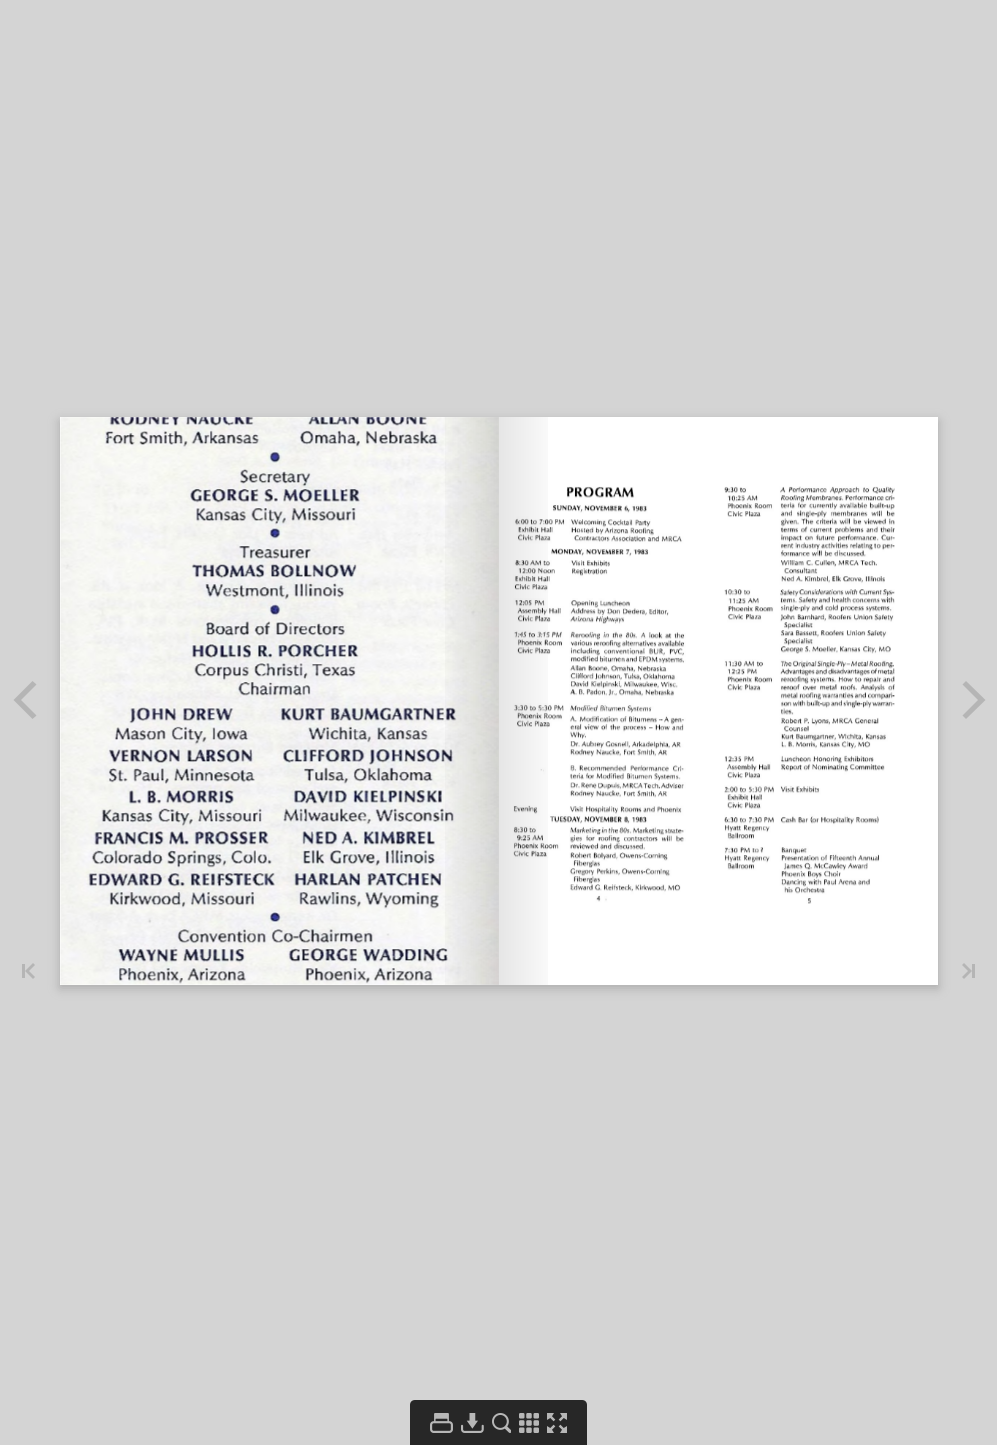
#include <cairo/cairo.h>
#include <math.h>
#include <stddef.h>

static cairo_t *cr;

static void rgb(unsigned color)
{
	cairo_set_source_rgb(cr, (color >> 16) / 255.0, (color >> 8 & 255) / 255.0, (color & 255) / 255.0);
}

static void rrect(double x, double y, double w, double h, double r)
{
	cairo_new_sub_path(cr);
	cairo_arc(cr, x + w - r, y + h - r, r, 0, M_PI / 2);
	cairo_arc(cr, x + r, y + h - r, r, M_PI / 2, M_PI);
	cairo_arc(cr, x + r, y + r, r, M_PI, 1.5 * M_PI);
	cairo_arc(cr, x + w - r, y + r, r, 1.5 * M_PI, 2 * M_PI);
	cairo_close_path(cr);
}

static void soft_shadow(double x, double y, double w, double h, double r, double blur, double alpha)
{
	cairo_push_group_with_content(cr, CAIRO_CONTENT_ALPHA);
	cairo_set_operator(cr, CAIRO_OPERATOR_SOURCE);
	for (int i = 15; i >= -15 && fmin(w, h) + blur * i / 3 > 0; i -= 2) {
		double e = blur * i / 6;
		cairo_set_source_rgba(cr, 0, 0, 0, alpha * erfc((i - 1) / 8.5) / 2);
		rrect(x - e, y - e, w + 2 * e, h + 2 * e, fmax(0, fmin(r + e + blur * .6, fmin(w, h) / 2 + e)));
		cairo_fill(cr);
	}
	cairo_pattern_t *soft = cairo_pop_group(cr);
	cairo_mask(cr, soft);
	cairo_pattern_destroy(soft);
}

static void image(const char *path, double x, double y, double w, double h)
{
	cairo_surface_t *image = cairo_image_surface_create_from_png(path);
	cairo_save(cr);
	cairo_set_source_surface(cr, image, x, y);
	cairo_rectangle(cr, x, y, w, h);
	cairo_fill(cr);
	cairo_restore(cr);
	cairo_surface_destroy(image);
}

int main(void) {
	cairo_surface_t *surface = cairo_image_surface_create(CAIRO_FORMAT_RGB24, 997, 1445);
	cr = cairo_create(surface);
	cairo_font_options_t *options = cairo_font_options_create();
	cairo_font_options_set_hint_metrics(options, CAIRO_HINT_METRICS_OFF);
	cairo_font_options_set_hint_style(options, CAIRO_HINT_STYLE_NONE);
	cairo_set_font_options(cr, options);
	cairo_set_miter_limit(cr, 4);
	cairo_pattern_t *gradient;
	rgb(0xd4d4d4);
	cairo_paint(cr);
	rgb(0xb5b5b5);
	cairo_new_path(cr);
	cairo_move_to(cr, 13.5, 700);
	cairo_line_to(cr, 32.5, 719);
	cairo_line_to(cr, 36.5, 715.5);
	cairo_line_to(cr, 21, 700);
	cairo_line_to(cr, 36.5, 684.5);
	cairo_line_to(cr, 32.5, 681);
	cairo_close_path(cr);
	cairo_fill(cr);
	rgb(0xaaaaaa);
	soft_shadow(60, 421, 878, 567, 0, 5.5, 1);
	rgb(0xffffff);
	cairo_rectangle(cr, 60, 417, 878, 568);
	cairo_fill(cr);
	image("img/1.png", 60, 417, 439, 568);
	gradient = cairo_pattern_create_linear(436, 701, 499, 701);
	cairo_pattern_add_color_stop_rgba(gradient, 0, 0, 0, 0, 0);
	cairo_pattern_add_color_stop_rgba(gradient, 1, 0, 0, 0, 0.15);
	cairo_set_source(cr, gradient);
	cairo_pattern_destroy(gradient);
	cairo_rectangle(cr, 445, 417, 54, 568);
	cairo_fill(cr);
	image("img/2.png", 513, 486, 382, 418);
	gradient = cairo_pattern_create_linear(499, 701, 562, 701);
	cairo_pattern_add_color_stop_rgba(gradient, 0, 0, 0, 0, 0.1);
	cairo_pattern_add_color_stop_rgba(gradient, 1, 0, 0, 0, 0);
	cairo_set_source(cr, gradient);
	cairo_pattern_destroy(gradient);
	cairo_rectangle(cr, 499, 417, 49, 568);
	cairo_fill(cr);
	rgb(0xb5b5b5);
	cairo_new_path(cr);
	cairo_move_to(cr, 985.5, 700);
	cairo_line_to(cr, 966, 719);
	cairo_line_to(cr, 962.5, 715.5);
	cairo_line_to(cr, 978, 700);
	cairo_line_to(cr, 962.5, 684.5);
	cairo_line_to(cr, 966, 681);
	cairo_close_path(cr);
	cairo_fill(cr);
	image("img/3.png", 22, 963, 13, 16);
	image("img/4.png", 962, 963, 13, 16);
	rgb(0x272727);
	cairo_new_path(cr);
	cairo_move_to(cr, 415, 1400);
	cairo_line_to(cr, 582, 1400);
	cairo_curve_to(cr, 585, 1400, 587, 1402, 587, 1405);
	cairo_line_to(cr, 587, 1445);
	cairo_line_to(cr, 410, 1445);
	cairo_line_to(cr, 410, 1405);
	cairo_curve_to(cr, 410, 1402, 412, 1400, 415, 1400);
	cairo_close_path(cr);
	cairo_fill(cr);
	image("img/5.png", 430, 1413, 23, 20);
	image("img/6.png", 461, 1413, 23, 20);
	image("img/7.png", 492, 1413, 19, 20);
	image("img/8.png", 519, 1413, 20, 20);
	image("img/9.png", 547, 1413, 20, 20);
	cairo_surface_write_to_png(surface, "page.png");
	cairo_font_options_destroy(options);
	cairo_destroy(cr);
	cairo_surface_destroy(surface);
	return 0;
}
